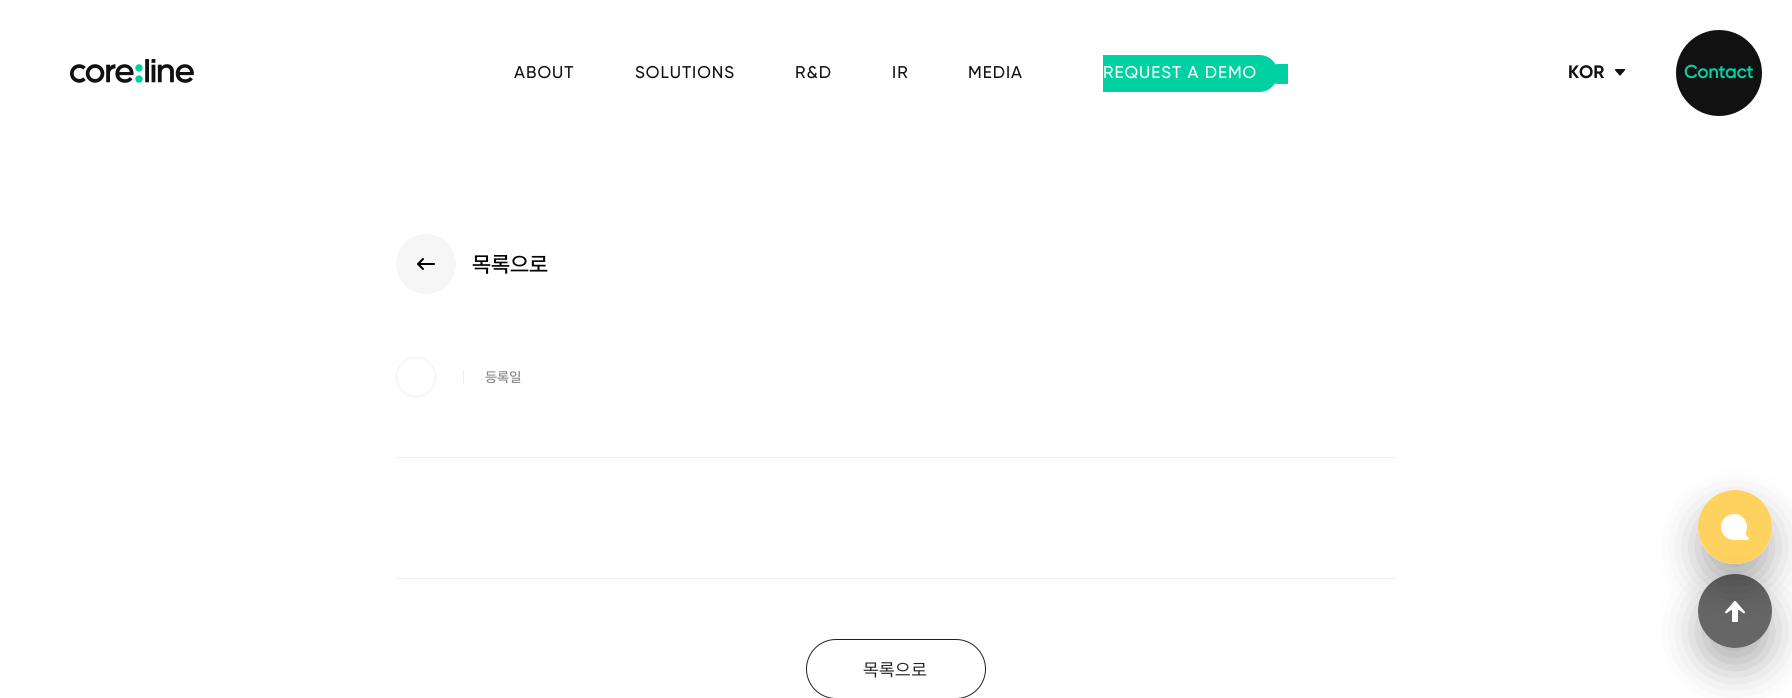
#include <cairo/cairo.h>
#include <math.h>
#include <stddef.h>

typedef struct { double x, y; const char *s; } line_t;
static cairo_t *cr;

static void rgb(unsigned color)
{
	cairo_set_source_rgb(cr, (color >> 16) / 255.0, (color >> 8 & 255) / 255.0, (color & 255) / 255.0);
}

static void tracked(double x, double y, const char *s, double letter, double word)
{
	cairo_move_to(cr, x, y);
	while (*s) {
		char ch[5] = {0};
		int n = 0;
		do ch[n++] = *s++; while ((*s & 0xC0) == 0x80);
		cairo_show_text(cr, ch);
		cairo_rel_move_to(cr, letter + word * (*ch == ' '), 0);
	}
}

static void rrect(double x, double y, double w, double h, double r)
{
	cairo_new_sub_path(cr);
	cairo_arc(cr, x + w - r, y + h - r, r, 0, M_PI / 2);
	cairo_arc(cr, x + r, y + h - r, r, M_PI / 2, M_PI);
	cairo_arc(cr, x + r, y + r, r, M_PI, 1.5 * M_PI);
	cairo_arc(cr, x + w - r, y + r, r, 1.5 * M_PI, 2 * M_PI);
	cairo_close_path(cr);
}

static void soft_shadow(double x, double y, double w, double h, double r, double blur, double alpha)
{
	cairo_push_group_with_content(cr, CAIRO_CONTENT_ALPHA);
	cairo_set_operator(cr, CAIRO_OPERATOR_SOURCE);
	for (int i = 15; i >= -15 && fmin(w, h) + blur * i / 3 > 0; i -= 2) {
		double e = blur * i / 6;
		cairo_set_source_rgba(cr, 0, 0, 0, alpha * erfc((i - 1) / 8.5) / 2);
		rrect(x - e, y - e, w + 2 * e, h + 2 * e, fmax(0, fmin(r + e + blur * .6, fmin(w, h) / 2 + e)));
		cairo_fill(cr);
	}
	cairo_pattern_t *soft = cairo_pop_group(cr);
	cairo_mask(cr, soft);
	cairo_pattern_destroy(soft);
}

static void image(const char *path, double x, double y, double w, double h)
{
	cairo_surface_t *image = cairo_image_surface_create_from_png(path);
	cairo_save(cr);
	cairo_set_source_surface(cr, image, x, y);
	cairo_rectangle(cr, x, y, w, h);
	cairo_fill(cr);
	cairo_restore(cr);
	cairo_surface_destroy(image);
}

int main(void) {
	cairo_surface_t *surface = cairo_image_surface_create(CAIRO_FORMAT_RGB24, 1792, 698);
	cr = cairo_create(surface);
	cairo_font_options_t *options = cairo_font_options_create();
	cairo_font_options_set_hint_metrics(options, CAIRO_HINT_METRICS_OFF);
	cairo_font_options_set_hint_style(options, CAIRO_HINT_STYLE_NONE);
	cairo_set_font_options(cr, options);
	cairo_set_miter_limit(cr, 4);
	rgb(0xffffff);
	cairo_paint(cr);
	image("img/1.png", 70, 59, 124, 24);
	rgb(0x00d1a3);
	cairo_new_path(cr);
	cairo_move_to(cr, 1278, 64);
	cairo_line_to(cr, 1288, 64);
	cairo_line_to(cr, 1288, 84);
	cairo_line_to(cr, 1278, 84);
	cairo_curve_to(cr, 1272.5, 84, 1268, 79.5, 1268, 74);
	cairo_curve_to(cr, 1268, 68.5, 1272.5, 64, 1278, 64);
	cairo_close_path(cr);
	cairo_fill(cr);
	cairo_new_path(cr);
	cairo_move_to(cr, 1103, 55);
	cairo_line_to(cr, 1259.5, 55);
	cairo_curve_to(cr, 1269.5, 55, 1278, 63.5, 1278, 73.5);
	cairo_curve_to(cr, 1278, 83.5, 1269.5, 92, 1259.5, 92);
	cairo_line_to(cr, 1103, 92);
	cairo_close_path(cr);
	cairo_fill(cr);
	image("img/2.png", 1614, 69, 12, 7);
	rgb(0x111111);
	cairo_arc(cr, 1719, 73, 43, 0, 2 * M_PI);
	cairo_fill(cr);
	image("img/3.png", 396, 234, 60, 60);
	rgb(0xeeeeee);
	cairo_rectangle(cr, 396, 457, 1000, 1);
	cairo_fill(cr);
	cairo_arc(cr, 416, 377, 19.5, 0, 2 * M_PI);
	cairo_set_line_width(cr, 1);
	cairo_stroke(cr);
	cairo_rectangle(cr, 463, 370, 1, 14);
	cairo_fill(cr);
	cairo_rectangle(cr, 396, 578, 1000, 1);
	cairo_fill(cr);
	rrect(806.5, 639.5, 179, 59, 29.5);
	rgb(0x222222);
	cairo_stroke(cr);
	cairo_save(cr);
	cairo_set_fill_rule(cr, CAIRO_FILL_RULE_EVEN_ODD);
	cairo_new_path(cr);
	cairo_move_to(cr, 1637, 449);
	cairo_line_to(cr, 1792, 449);
	cairo_line_to(cr, 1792, 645);
	cairo_line_to(cr, 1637, 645);
	cairo_close_path(cr);
	cairo_move_to(cr, 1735, 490);
	cairo_curve_to(cr, 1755.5, 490, 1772, 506.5, 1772, 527);
	cairo_curve_to(cr, 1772, 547.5, 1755.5, 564, 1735, 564);
	cairo_curve_to(cr, 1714.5, 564, 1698, 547.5, 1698, 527);
	cairo_curve_to(cr, 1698, 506.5, 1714.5, 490, 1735, 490);
	cairo_close_path(cr);
	cairo_clip(cr);
	rgb(0x000000);
	soft_shadow(1698, 510, 74, 74, 37, 20, 0.3);
	cairo_restore(cr);
	cairo_set_source_rgba(cr, 1, 0.8, 0.302, 0.9);
	cairo_arc(cr, 1735, 527, 37, 0, 2 * M_PI);
	cairo_fill(cr);
	image("img/4.png", 1721, 514, 28, 26);
	cairo_save(cr);
	cairo_set_fill_rule(cr, CAIRO_FILL_RULE_EVEN_ODD);
	cairo_new_path(cr);
	cairo_move_to(cr, 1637, 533);
	cairo_line_to(cr, 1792, 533);
	cairo_line_to(cr, 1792, 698);
	cairo_line_to(cr, 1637, 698);
	cairo_close_path(cr);
	cairo_move_to(cr, 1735, 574);
	cairo_curve_to(cr, 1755.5, 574, 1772, 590.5, 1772, 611);
	cairo_curve_to(cr, 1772, 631.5, 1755.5, 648, 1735, 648);
	cairo_curve_to(cr, 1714.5, 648, 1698, 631.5, 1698, 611);
	cairo_curve_to(cr, 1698, 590.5, 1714.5, 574, 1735, 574);
	cairo_close_path(cr);
	cairo_clip(cr);
	rgb(0x000000);
	soft_shadow(1698, 594, 74, 74, 37, 20, 0.3);
	cairo_restore(cr);
	cairo_set_source_rgba(cr, 0, 0, 0, 0.6);
	cairo_arc(cr, 1735, 611, 37, 0, 2 * M_PI);
	cairo_fill(cr);
	image("img/5.png", 1725, 601, 20, 21);
	cairo_select_font_face(cr, "Gilroy Medium", CAIRO_FONT_SLANT_NORMAL, CAIRO_FONT_WEIGHT_NORMAL);
	cairo_set_font_size(cr, 17);
	rgb(0x111111);
	{
		static const line_t items[] = {
			{514, 78, "ABOUT"},
			{635, 78, "SOLUTIONS"},
			{795, 78, "R&D"},
			{892, 78, "IR"},
			{968, 78, "MEDIA"},
		};
		for (size_t i = 0; i < sizeof items / sizeof *items; i++) {
			tracked(items[i].x, items[i].y, items[i].s, 1, 0);
		}
	}
	rgb(0xffffff);
	tracked(1103, 78, "REQUEST A DEMO", 1, 0);
	cairo_select_font_face(cr, "Gilroy", CAIRO_FONT_SLANT_NORMAL, CAIRO_FONT_WEIGHT_BOLD);
	cairo_set_font_size(cr, 18);
	rgb(0x111111);
	cairo_move_to(cr, 1568, 78);
	cairo_show_text(cr, "KOR");
	cairo_select_font_face(cr, "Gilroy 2", CAIRO_FONT_SLANT_NORMAL, CAIRO_FONT_WEIGHT_BOLD);
	rgb(0x00d1a3);
	cairo_move_to(cr, 1684, 78);
	cairo_show_text(cr, "Contact");
	cairo_select_font_face(cr, "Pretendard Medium", CAIRO_FONT_SLANT_NORMAL, CAIRO_FONT_WEIGHT_NORMAL);
	cairo_set_font_size(cr, 22);
	rgb(0x000000);
	cairo_move_to(cr, 472, 272);
	cairo_show_text(cr, "목록으로");
	cairo_set_font_size(cr, 14);
	rgb(0x888888);
	cairo_move_to(cr, 485, 382);
	cairo_show_text(cr, "등록일");
	cairo_select_font_face(cr, "Pretendard", CAIRO_FONT_SLANT_NORMAL, CAIRO_FONT_WEIGHT_NORMAL);
	cairo_set_font_size(cr, 18);
	rgb(0x222222);
	tracked(863, 676, "목록으로", 0.5, 0);
	cairo_surface_write_to_png(surface, "page.png");
	cairo_font_options_destroy(options);
	cairo_destroy(cr);
	cairo_surface_destroy(surface);
	return 0;
}
